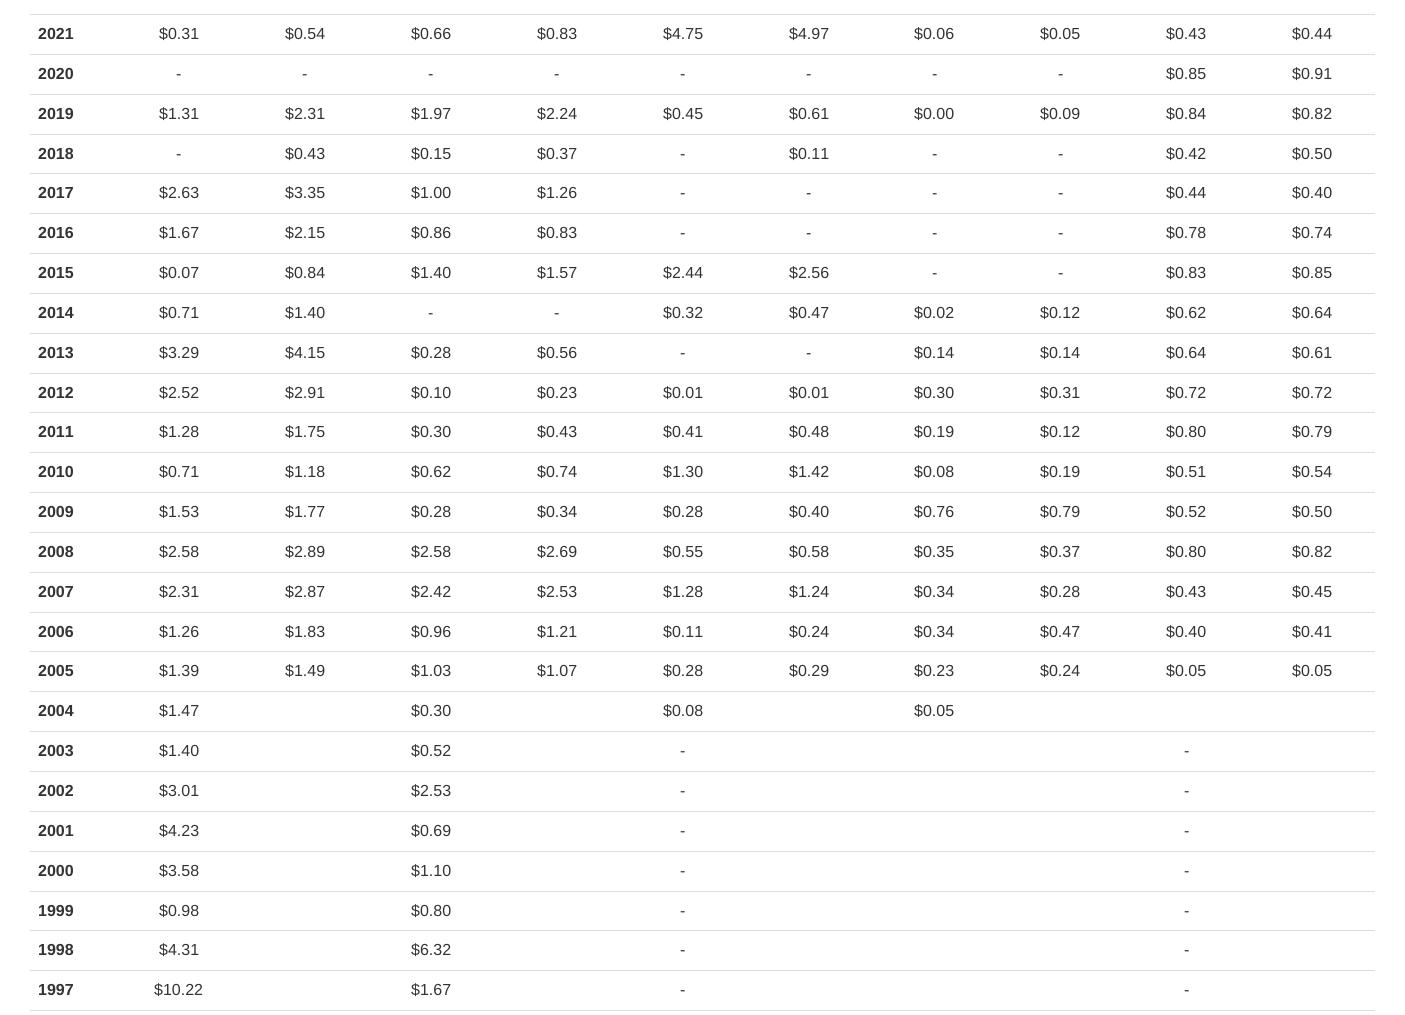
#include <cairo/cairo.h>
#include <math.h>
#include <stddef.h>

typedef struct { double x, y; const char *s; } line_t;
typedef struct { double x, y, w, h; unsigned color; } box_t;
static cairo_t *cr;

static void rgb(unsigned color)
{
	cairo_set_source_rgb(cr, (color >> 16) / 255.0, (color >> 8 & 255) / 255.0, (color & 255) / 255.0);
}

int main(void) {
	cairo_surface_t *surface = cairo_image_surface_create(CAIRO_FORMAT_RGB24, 1405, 1015);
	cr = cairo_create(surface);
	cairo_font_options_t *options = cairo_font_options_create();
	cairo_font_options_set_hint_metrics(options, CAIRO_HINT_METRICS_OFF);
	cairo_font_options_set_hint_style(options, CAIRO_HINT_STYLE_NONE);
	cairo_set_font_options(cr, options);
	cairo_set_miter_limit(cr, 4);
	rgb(0xffffff);
	cairo_paint(cr);
	{
		static const box_t items[] = {
			{30, 14, 1345, 1, 0xdddddd},
			{30, 54, 1345, 1, 0xdddddd},
			{30, 94, 1345, 1, 0xdddddd},
			{30, 134, 1345, 1, 0xdddddd},
			{30, 173, 1345, 1, 0xdddddd},
			{30, 213, 1345, 1, 0xdddddd},
			{30, 253, 1345, 1, 0xdddddd},
			{30, 293, 1345, 1, 0xdddddd},
			{30, 333, 1345, 1, 0xdddddd},
			{30, 373, 1345, 1, 0xdddddd},
			{30, 412, 1345, 1, 0xdddddd},
			{30, 452, 1345, 1, 0xdddddd},
			{30, 492, 1345, 1, 0xdddddd},
			{30, 532, 1345, 1, 0xdddddd},
			{30, 572, 1345, 1, 0xdddddd},
			{30, 612, 1345, 1, 0xdddddd},
			{30, 651, 1345, 1, 0xdddddd},
			{30, 691, 1345, 1, 0xdddddd},
			{30, 731, 1345, 1, 0xdddddd},
			{30, 771, 1345, 1, 0xdddddd},
			{30, 811, 1345, 1, 0xdddddd},
			{30, 851, 1345, 1, 0xdddddd},
			{30, 891, 1345, 1, 0xdddddd},
			{30, 930, 1345, 1, 0xdddddd},
			{30, 970, 1345, 1, 0xdddddd},
			{30, 1010, 1345, 1, 0xdddddd},
		};
		for (size_t i = 0; i < sizeof items / sizeof *items; i++) {
			rgb(items[i].color);
			cairo_rectangle(cr, items[i].x, items[i].y, items[i].w, items[i].h);
			cairo_fill(cr);
		}
	}
	cairo_select_font_face(cr, "Liberation Sans", CAIRO_FONT_SLANT_NORMAL, CAIRO_FONT_WEIGHT_BOLD);
	cairo_set_font_size(cr, 16);
	rgb(0x333333);
	cairo_move_to(cr, 38, 39);
	cairo_show_text(cr, "2021");
	cairo_select_font_face(cr, "Liberation Sans", CAIRO_FONT_SLANT_NORMAL, CAIRO_FONT_WEIGHT_NORMAL);
	{
		static const line_t items[] = {
			{159, 39, "$0.31"},
			{285, 39, "$0.54"},
			{411, 39, "$0.66"},
			{537, 39, "$0.83"},
			{663, 39, "$4.75"},
			{789, 39, "$4.97"},
			{914, 39, "$0.06"},
			{1040, 39, "$0.05"},
			{1166, 39, "$0.43"},
			{1292, 39, "$0.44"},
		};
		for (size_t i = 0; i < sizeof items / sizeof *items; i++) {
			cairo_move_to(cr, items[i].x, items[i].y);
			cairo_show_text(cr, items[i].s);
		}
	}
	cairo_select_font_face(cr, "Liberation Sans", CAIRO_FONT_SLANT_NORMAL, CAIRO_FONT_WEIGHT_BOLD);
	cairo_move_to(cr, 38, 79);
	cairo_show_text(cr, "2020");
	cairo_select_font_face(cr, "Liberation Sans", CAIRO_FONT_SLANT_NORMAL, CAIRO_FONT_WEIGHT_NORMAL);
	{
		static const line_t items[] = {
			{176, 79, "-"},
			{302, 79, "-"},
			{428, 79, "-"},
			{554, 79, "-"},
			{680, 79, "-"},
			{806, 79, "-"},
			{932, 79, "-"},
			{1058, 79, "-"},
			{1166, 79, "$0.85"},
			{1292, 79, "$0.91"},
		};
		for (size_t i = 0; i < sizeof items / sizeof *items; i++) {
			cairo_move_to(cr, items[i].x, items[i].y);
			cairo_show_text(cr, items[i].s);
		}
	}
	cairo_select_font_face(cr, "Liberation Sans", CAIRO_FONT_SLANT_NORMAL, CAIRO_FONT_WEIGHT_BOLD);
	cairo_move_to(cr, 38, 119);
	cairo_show_text(cr, "2019");
	cairo_select_font_face(cr, "Liberation Sans", CAIRO_FONT_SLANT_NORMAL, CAIRO_FONT_WEIGHT_NORMAL);
	{
		static const line_t items[] = {
			{159, 119, "$1.31"},
			{285, 119, "$2.31"},
			{411, 119, "$1.97"},
			{537, 119, "$2.24"},
			{663, 119, "$0.45"},
			{789, 119, "$0.61"},
			{914, 119, "$0.00"},
			{1040, 119, "$0.09"},
			{1166, 119, "$0.84"},
			{1292, 119, "$0.82"},
		};
		for (size_t i = 0; i < sizeof items / sizeof *items; i++) {
			cairo_move_to(cr, items[i].x, items[i].y);
			cairo_show_text(cr, items[i].s);
		}
	}
	cairo_select_font_face(cr, "Liberation Sans", CAIRO_FONT_SLANT_NORMAL, CAIRO_FONT_WEIGHT_BOLD);
	cairo_move_to(cr, 38, 159);
	cairo_show_text(cr, "2018");
	cairo_select_font_face(cr, "Liberation Sans", CAIRO_FONT_SLANT_NORMAL, CAIRO_FONT_WEIGHT_NORMAL);
	{
		static const line_t items[] = {
			{176, 159, "-"},
			{285, 159, "$0.43"},
			{411, 159, "$0.15"},
			{537, 159, "$0.37"},
			{680, 159, "-"},
			{789, 159, "$0.11"},
			{932, 159, "-"},
			{1058, 159, "-"},
			{1166, 159, "$0.42"},
			{1292, 159, "$0.50"},
		};
		for (size_t i = 0; i < sizeof items / sizeof *items; i++) {
			cairo_move_to(cr, items[i].x, items[i].y);
			cairo_show_text(cr, items[i].s);
		}
	}
	cairo_select_font_face(cr, "Liberation Sans", CAIRO_FONT_SLANT_NORMAL, CAIRO_FONT_WEIGHT_BOLD);
	cairo_move_to(cr, 38, 198);
	cairo_show_text(cr, "2017");
	cairo_select_font_face(cr, "Liberation Sans", CAIRO_FONT_SLANT_NORMAL, CAIRO_FONT_WEIGHT_NORMAL);
	{
		static const line_t items[] = {
			{159, 198, "$2.63"},
			{285, 198, "$3.35"},
			{411, 198, "$1.00"},
			{537, 198, "$1.26"},
			{680, 198, "-"},
			{806, 198, "-"},
			{932, 198, "-"},
			{1058, 198, "-"},
			{1166, 198, "$0.44"},
			{1292, 198, "$0.40"},
		};
		for (size_t i = 0; i < sizeof items / sizeof *items; i++) {
			cairo_move_to(cr, items[i].x, items[i].y);
			cairo_show_text(cr, items[i].s);
		}
	}
	cairo_select_font_face(cr, "Liberation Sans", CAIRO_FONT_SLANT_NORMAL, CAIRO_FONT_WEIGHT_BOLD);
	cairo_move_to(cr, 38, 238);
	cairo_show_text(cr, "2016");
	cairo_select_font_face(cr, "Liberation Sans", CAIRO_FONT_SLANT_NORMAL, CAIRO_FONT_WEIGHT_NORMAL);
	{
		static const line_t items[] = {
			{159, 238, "$1.67"},
			{285, 238, "$2.15"},
			{411, 238, "$0.86"},
			{537, 238, "$0.83"},
			{680, 238, "-"},
			{806, 238, "-"},
			{932, 238, "-"},
			{1058, 238, "-"},
			{1166, 238, "$0.78"},
			{1292, 238, "$0.74"},
		};
		for (size_t i = 0; i < sizeof items / sizeof *items; i++) {
			cairo_move_to(cr, items[i].x, items[i].y);
			cairo_show_text(cr, items[i].s);
		}
	}
	cairo_select_font_face(cr, "Liberation Sans", CAIRO_FONT_SLANT_NORMAL, CAIRO_FONT_WEIGHT_BOLD);
	cairo_move_to(cr, 38, 278);
	cairo_show_text(cr, "2015");
	cairo_select_font_face(cr, "Liberation Sans", CAIRO_FONT_SLANT_NORMAL, CAIRO_FONT_WEIGHT_NORMAL);
	{
		static const line_t items[] = {
			{159, 278, "$0.07"},
			{285, 278, "$0.84"},
			{411, 278, "$1.40"},
			{537, 278, "$1.57"},
			{663, 278, "$2.44"},
			{789, 278, "$2.56"},
			{932, 278, "-"},
			{1058, 278, "-"},
			{1166, 278, "$0.83"},
			{1292, 278, "$0.85"},
		};
		for (size_t i = 0; i < sizeof items / sizeof *items; i++) {
			cairo_move_to(cr, items[i].x, items[i].y);
			cairo_show_text(cr, items[i].s);
		}
	}
	cairo_select_font_face(cr, "Liberation Sans", CAIRO_FONT_SLANT_NORMAL, CAIRO_FONT_WEIGHT_BOLD);
	cairo_move_to(cr, 38, 318);
	cairo_show_text(cr, "2014");
	cairo_select_font_face(cr, "Liberation Sans", CAIRO_FONT_SLANT_NORMAL, CAIRO_FONT_WEIGHT_NORMAL);
	{
		static const line_t items[] = {
			{159, 318, "$0.71"},
			{285, 318, "$1.40"},
			{428, 318, "-"},
			{554, 318, "-"},
			{663, 318, "$0.32"},
			{789, 318, "$0.47"},
			{914, 318, "$0.02"},
			{1040, 318, "$0.12"},
			{1166, 318, "$0.62"},
			{1292, 318, "$0.64"},
		};
		for (size_t i = 0; i < sizeof items / sizeof *items; i++) {
			cairo_move_to(cr, items[i].x, items[i].y);
			cairo_show_text(cr, items[i].s);
		}
	}
	cairo_select_font_face(cr, "Liberation Sans", CAIRO_FONT_SLANT_NORMAL, CAIRO_FONT_WEIGHT_BOLD);
	cairo_move_to(cr, 38, 358);
	cairo_show_text(cr, "2013");
	cairo_select_font_face(cr, "Liberation Sans", CAIRO_FONT_SLANT_NORMAL, CAIRO_FONT_WEIGHT_NORMAL);
	{
		static const line_t items[] = {
			{159, 358, "$3.29"},
			{285, 358, "$4.15"},
			{411, 358, "$0.28"},
			{537, 358, "$0.56"},
			{680, 358, "-"},
			{806, 358, "-"},
			{914, 358, "$0.14"},
			{1040, 358, "$0.14"},
			{1166, 358, "$0.64"},
			{1292, 358, "$0.61"},
		};
		for (size_t i = 0; i < sizeof items / sizeof *items; i++) {
			cairo_move_to(cr, items[i].x, items[i].y);
			cairo_show_text(cr, items[i].s);
		}
	}
	cairo_select_font_face(cr, "Liberation Sans", CAIRO_FONT_SLANT_NORMAL, CAIRO_FONT_WEIGHT_BOLD);
	cairo_move_to(cr, 38, 398);
	cairo_show_text(cr, "2012");
	cairo_select_font_face(cr, "Liberation Sans", CAIRO_FONT_SLANT_NORMAL, CAIRO_FONT_WEIGHT_NORMAL);
	{
		static const line_t items[] = {
			{159, 398, "$2.52"},
			{285, 398, "$2.91"},
			{411, 398, "$0.10"},
			{537, 398, "$0.23"},
			{663, 398, "$0.01"},
			{789, 398, "$0.01"},
			{914, 398, "$0.30"},
			{1040, 398, "$0.31"},
			{1166, 398, "$0.72"},
			{1292, 398, "$0.72"},
		};
		for (size_t i = 0; i < sizeof items / sizeof *items; i++) {
			cairo_move_to(cr, items[i].x, items[i].y);
			cairo_show_text(cr, items[i].s);
		}
	}
	cairo_select_font_face(cr, "Liberation Sans", CAIRO_FONT_SLANT_NORMAL, CAIRO_FONT_WEIGHT_BOLD);
	cairo_move_to(cr, 38, 437);
	cairo_show_text(cr, "2011");
	cairo_select_font_face(cr, "Liberation Sans", CAIRO_FONT_SLANT_NORMAL, CAIRO_FONT_WEIGHT_NORMAL);
	{
		static const line_t items[] = {
			{159, 437, "$1.28"},
			{285, 437, "$1.75"},
			{411, 437, "$0.30"},
			{537, 437, "$0.43"},
			{663, 437, "$0.41"},
			{789, 437, "$0.48"},
			{914, 437, "$0.19"},
			{1040, 437, "$0.12"},
			{1166, 437, "$0.80"},
			{1292, 437, "$0.79"},
		};
		for (size_t i = 0; i < sizeof items / sizeof *items; i++) {
			cairo_move_to(cr, items[i].x, items[i].y);
			cairo_show_text(cr, items[i].s);
		}
	}
	cairo_select_font_face(cr, "Liberation Sans", CAIRO_FONT_SLANT_NORMAL, CAIRO_FONT_WEIGHT_BOLD);
	cairo_move_to(cr, 38, 477);
	cairo_show_text(cr, "2010");
	cairo_select_font_face(cr, "Liberation Sans", CAIRO_FONT_SLANT_NORMAL, CAIRO_FONT_WEIGHT_NORMAL);
	{
		static const line_t items[] = {
			{159, 477, "$0.71"},
			{285, 477, "$1.18"},
			{411, 477, "$0.62"},
			{537, 477, "$0.74"},
			{663, 477, "$1.30"},
			{789, 477, "$1.42"},
			{914, 477, "$0.08"},
			{1040, 477, "$0.19"},
			{1166, 477, "$0.51"},
			{1292, 477, "$0.54"},
		};
		for (size_t i = 0; i < sizeof items / sizeof *items; i++) {
			cairo_move_to(cr, items[i].x, items[i].y);
			cairo_show_text(cr, items[i].s);
		}
	}
	cairo_select_font_face(cr, "Liberation Sans", CAIRO_FONT_SLANT_NORMAL, CAIRO_FONT_WEIGHT_BOLD);
	cairo_move_to(cr, 38, 517);
	cairo_show_text(cr, "2009");
	cairo_select_font_face(cr, "Liberation Sans", CAIRO_FONT_SLANT_NORMAL, CAIRO_FONT_WEIGHT_NORMAL);
	{
		static const line_t items[] = {
			{159, 517, "$1.53"},
			{285, 517, "$1.77"},
			{411, 517, "$0.28"},
			{537, 517, "$0.34"},
			{663, 517, "$0.28"},
			{789, 517, "$0.40"},
			{914, 517, "$0.76"},
			{1040, 517, "$0.79"},
			{1166, 517, "$0.52"},
			{1292, 517, "$0.50"},
		};
		for (size_t i = 0; i < sizeof items / sizeof *items; i++) {
			cairo_move_to(cr, items[i].x, items[i].y);
			cairo_show_text(cr, items[i].s);
		}
	}
	cairo_select_font_face(cr, "Liberation Sans", CAIRO_FONT_SLANT_NORMAL, CAIRO_FONT_WEIGHT_BOLD);
	cairo_move_to(cr, 38, 557);
	cairo_show_text(cr, "2008");
	cairo_select_font_face(cr, "Liberation Sans", CAIRO_FONT_SLANT_NORMAL, CAIRO_FONT_WEIGHT_NORMAL);
	{
		static const line_t items[] = {
			{159, 557, "$2.58"},
			{285, 557, "$2.89"},
			{411, 557, "$2.58"},
			{537, 557, "$2.69"},
			{663, 557, "$0.55"},
			{789, 557, "$0.58"},
			{914, 557, "$0.35"},
			{1040, 557, "$0.37"},
			{1166, 557, "$0.80"},
			{1292, 557, "$0.82"},
		};
		for (size_t i = 0; i < sizeof items / sizeof *items; i++) {
			cairo_move_to(cr, items[i].x, items[i].y);
			cairo_show_text(cr, items[i].s);
		}
	}
	cairo_select_font_face(cr, "Liberation Sans", CAIRO_FONT_SLANT_NORMAL, CAIRO_FONT_WEIGHT_BOLD);
	cairo_move_to(cr, 38, 597);
	cairo_show_text(cr, "2007");
	cairo_select_font_face(cr, "Liberation Sans", CAIRO_FONT_SLANT_NORMAL, CAIRO_FONT_WEIGHT_NORMAL);
	{
		static const line_t items[] = {
			{159, 597, "$2.31"},
			{285, 597, "$2.87"},
			{411, 597, "$2.42"},
			{537, 597, "$2.53"},
			{663, 597, "$1.28"},
			{789, 597, "$1.24"},
			{914, 597, "$0.34"},
			{1040, 597, "$0.28"},
			{1166, 597, "$0.43"},
			{1292, 597, "$0.45"},
		};
		for (size_t i = 0; i < sizeof items / sizeof *items; i++) {
			cairo_move_to(cr, items[i].x, items[i].y);
			cairo_show_text(cr, items[i].s);
		}
	}
	cairo_select_font_face(cr, "Liberation Sans", CAIRO_FONT_SLANT_NORMAL, CAIRO_FONT_WEIGHT_BOLD);
	cairo_move_to(cr, 38, 637);
	cairo_show_text(cr, "2006");
	cairo_select_font_face(cr, "Liberation Sans", CAIRO_FONT_SLANT_NORMAL, CAIRO_FONT_WEIGHT_NORMAL);
	{
		static const line_t items[] = {
			{159, 637, "$1.26"},
			{285, 637, "$1.83"},
			{411, 637, "$0.96"},
			{537, 637, "$1.21"},
			{663, 637, "$0.11"},
			{789, 637, "$0.24"},
			{914, 637, "$0.34"},
			{1040, 637, "$0.47"},
			{1166, 637, "$0.40"},
			{1292, 637, "$0.41"},
		};
		for (size_t i = 0; i < sizeof items / sizeof *items; i++) {
			cairo_move_to(cr, items[i].x, items[i].y);
			cairo_show_text(cr, items[i].s);
		}
	}
	cairo_select_font_face(cr, "Liberation Sans", CAIRO_FONT_SLANT_NORMAL, CAIRO_FONT_WEIGHT_BOLD);
	cairo_move_to(cr, 38, 676);
	cairo_show_text(cr, "2005");
	cairo_select_font_face(cr, "Liberation Sans", CAIRO_FONT_SLANT_NORMAL, CAIRO_FONT_WEIGHT_NORMAL);
	{
		static const line_t items[] = {
			{159, 676, "$1.39"},
			{285, 676, "$1.49"},
			{411, 676, "$1.03"},
			{537, 676, "$1.07"},
			{663, 676, "$0.28"},
			{789, 676, "$0.29"},
			{914, 676, "$0.23"},
			{1040, 676, "$0.24"},
			{1166, 676, "$0.05"},
			{1292, 676, "$0.05"},
		};
		for (size_t i = 0; i < sizeof items / sizeof *items; i++) {
			cairo_move_to(cr, items[i].x, items[i].y);
			cairo_show_text(cr, items[i].s);
		}
	}
	cairo_select_font_face(cr, "Liberation Sans", CAIRO_FONT_SLANT_NORMAL, CAIRO_FONT_WEIGHT_BOLD);
	cairo_move_to(cr, 38, 716);
	cairo_show_text(cr, "2004");
	cairo_select_font_face(cr, "Liberation Sans", CAIRO_FONT_SLANT_NORMAL, CAIRO_FONT_WEIGHT_NORMAL);
	{
		static const line_t items[] = {
			{159, 716, "$1.47"},
			{411, 716, "$0.30"},
			{663, 716, "$0.08"},
			{914, 716, "$0.05"},
		};
		for (size_t i = 0; i < sizeof items / sizeof *items; i++) {
			cairo_move_to(cr, items[i].x, items[i].y);
			cairo_show_text(cr, items[i].s);
		}
	}
	cairo_select_font_face(cr, "Liberation Sans", CAIRO_FONT_SLANT_NORMAL, CAIRO_FONT_WEIGHT_BOLD);
	cairo_move_to(cr, 38, 756);
	cairo_show_text(cr, "2003");
	cairo_select_font_face(cr, "Liberation Sans", CAIRO_FONT_SLANT_NORMAL, CAIRO_FONT_WEIGHT_NORMAL);
	{
		static const line_t items[] = {
			{159, 756, "$1.40"},
			{411, 756, "$0.52"},
			{680, 756, "-"},
			{1184, 756, "-"},
		};
		for (size_t i = 0; i < sizeof items / sizeof *items; i++) {
			cairo_move_to(cr, items[i].x, items[i].y);
			cairo_show_text(cr, items[i].s);
		}
	}
	cairo_select_font_face(cr, "Liberation Sans", CAIRO_FONT_SLANT_NORMAL, CAIRO_FONT_WEIGHT_BOLD);
	cairo_move_to(cr, 38, 796);
	cairo_show_text(cr, "2002");
	cairo_select_font_face(cr, "Liberation Sans", CAIRO_FONT_SLANT_NORMAL, CAIRO_FONT_WEIGHT_NORMAL);
	{
		static const line_t items[] = {
			{159, 796, "$3.01"},
			{411, 796, "$2.53"},
			{680, 796, "-"},
			{1184, 796, "-"},
		};
		for (size_t i = 0; i < sizeof items / sizeof *items; i++) {
			cairo_move_to(cr, items[i].x, items[i].y);
			cairo_show_text(cr, items[i].s);
		}
	}
	cairo_select_font_face(cr, "Liberation Sans", CAIRO_FONT_SLANT_NORMAL, CAIRO_FONT_WEIGHT_BOLD);
	cairo_move_to(cr, 38, 836);
	cairo_show_text(cr, "2001");
	cairo_select_font_face(cr, "Liberation Sans", CAIRO_FONT_SLANT_NORMAL, CAIRO_FONT_WEIGHT_NORMAL);
	{
		static const line_t items[] = {
			{159, 836, "$4.23"},
			{411, 836, "$0.69"},
			{680, 836, "-"},
			{1184, 836, "-"},
		};
		for (size_t i = 0; i < sizeof items / sizeof *items; i++) {
			cairo_move_to(cr, items[i].x, items[i].y);
			cairo_show_text(cr, items[i].s);
		}
	}
	cairo_select_font_face(cr, "Liberation Sans", CAIRO_FONT_SLANT_NORMAL, CAIRO_FONT_WEIGHT_BOLD);
	cairo_move_to(cr, 38, 876);
	cairo_show_text(cr, "2000");
	cairo_select_font_face(cr, "Liberation Sans", CAIRO_FONT_SLANT_NORMAL, CAIRO_FONT_WEIGHT_NORMAL);
	{
		static const line_t items[] = {
			{159, 876, "$3.58"},
			{411, 876, "$1.10"},
			{680, 876, "-"},
			{1184, 876, "-"},
		};
		for (size_t i = 0; i < sizeof items / sizeof *items; i++) {
			cairo_move_to(cr, items[i].x, items[i].y);
			cairo_show_text(cr, items[i].s);
		}
	}
	cairo_select_font_face(cr, "Liberation Sans", CAIRO_FONT_SLANT_NORMAL, CAIRO_FONT_WEIGHT_BOLD);
	cairo_move_to(cr, 38, 916);
	cairo_show_text(cr, "1999");
	cairo_select_font_face(cr, "Liberation Sans", CAIRO_FONT_SLANT_NORMAL, CAIRO_FONT_WEIGHT_NORMAL);
	{
		static const line_t items[] = {
			{159, 916, "$0.98"},
			{411, 916, "$0.80"},
			{680, 916, "-"},
			{1184, 916, "-"},
		};
		for (size_t i = 0; i < sizeof items / sizeof *items; i++) {
			cairo_move_to(cr, items[i].x, items[i].y);
			cairo_show_text(cr, items[i].s);
		}
	}
	cairo_select_font_face(cr, "Liberation Sans", CAIRO_FONT_SLANT_NORMAL, CAIRO_FONT_WEIGHT_BOLD);
	cairo_move_to(cr, 38, 955);
	cairo_show_text(cr, "1998");
	cairo_select_font_face(cr, "Liberation Sans", CAIRO_FONT_SLANT_NORMAL, CAIRO_FONT_WEIGHT_NORMAL);
	{
		static const line_t items[] = {
			{159, 955, "$4.31"},
			{411, 955, "$6.32"},
			{680, 955, "-"},
			{1184, 955, "-"},
		};
		for (size_t i = 0; i < sizeof items / sizeof *items; i++) {
			cairo_move_to(cr, items[i].x, items[i].y);
			cairo_show_text(cr, items[i].s);
		}
	}
	cairo_select_font_face(cr, "Liberation Sans", CAIRO_FONT_SLANT_NORMAL, CAIRO_FONT_WEIGHT_BOLD);
	cairo_move_to(cr, 38, 995);
	cairo_show_text(cr, "1997");
	cairo_select_font_face(cr, "Liberation Sans", CAIRO_FONT_SLANT_NORMAL, CAIRO_FONT_WEIGHT_NORMAL);
	{
		static const line_t items[] = {
			{154, 995, "$10.22"},
			{411, 995, "$1.67"},
			{680, 995, "-"},
			{1184, 995, "-"},
		};
		for (size_t i = 0; i < sizeof items / sizeof *items; i++) {
			cairo_move_to(cr, items[i].x, items[i].y);
			cairo_show_text(cr, items[i].s);
		}
	}
	cairo_surface_write_to_png(surface, "page.png");
	cairo_font_options_destroy(options);
	cairo_destroy(cr);
	cairo_surface_destroy(surface);
	return 0;
}
